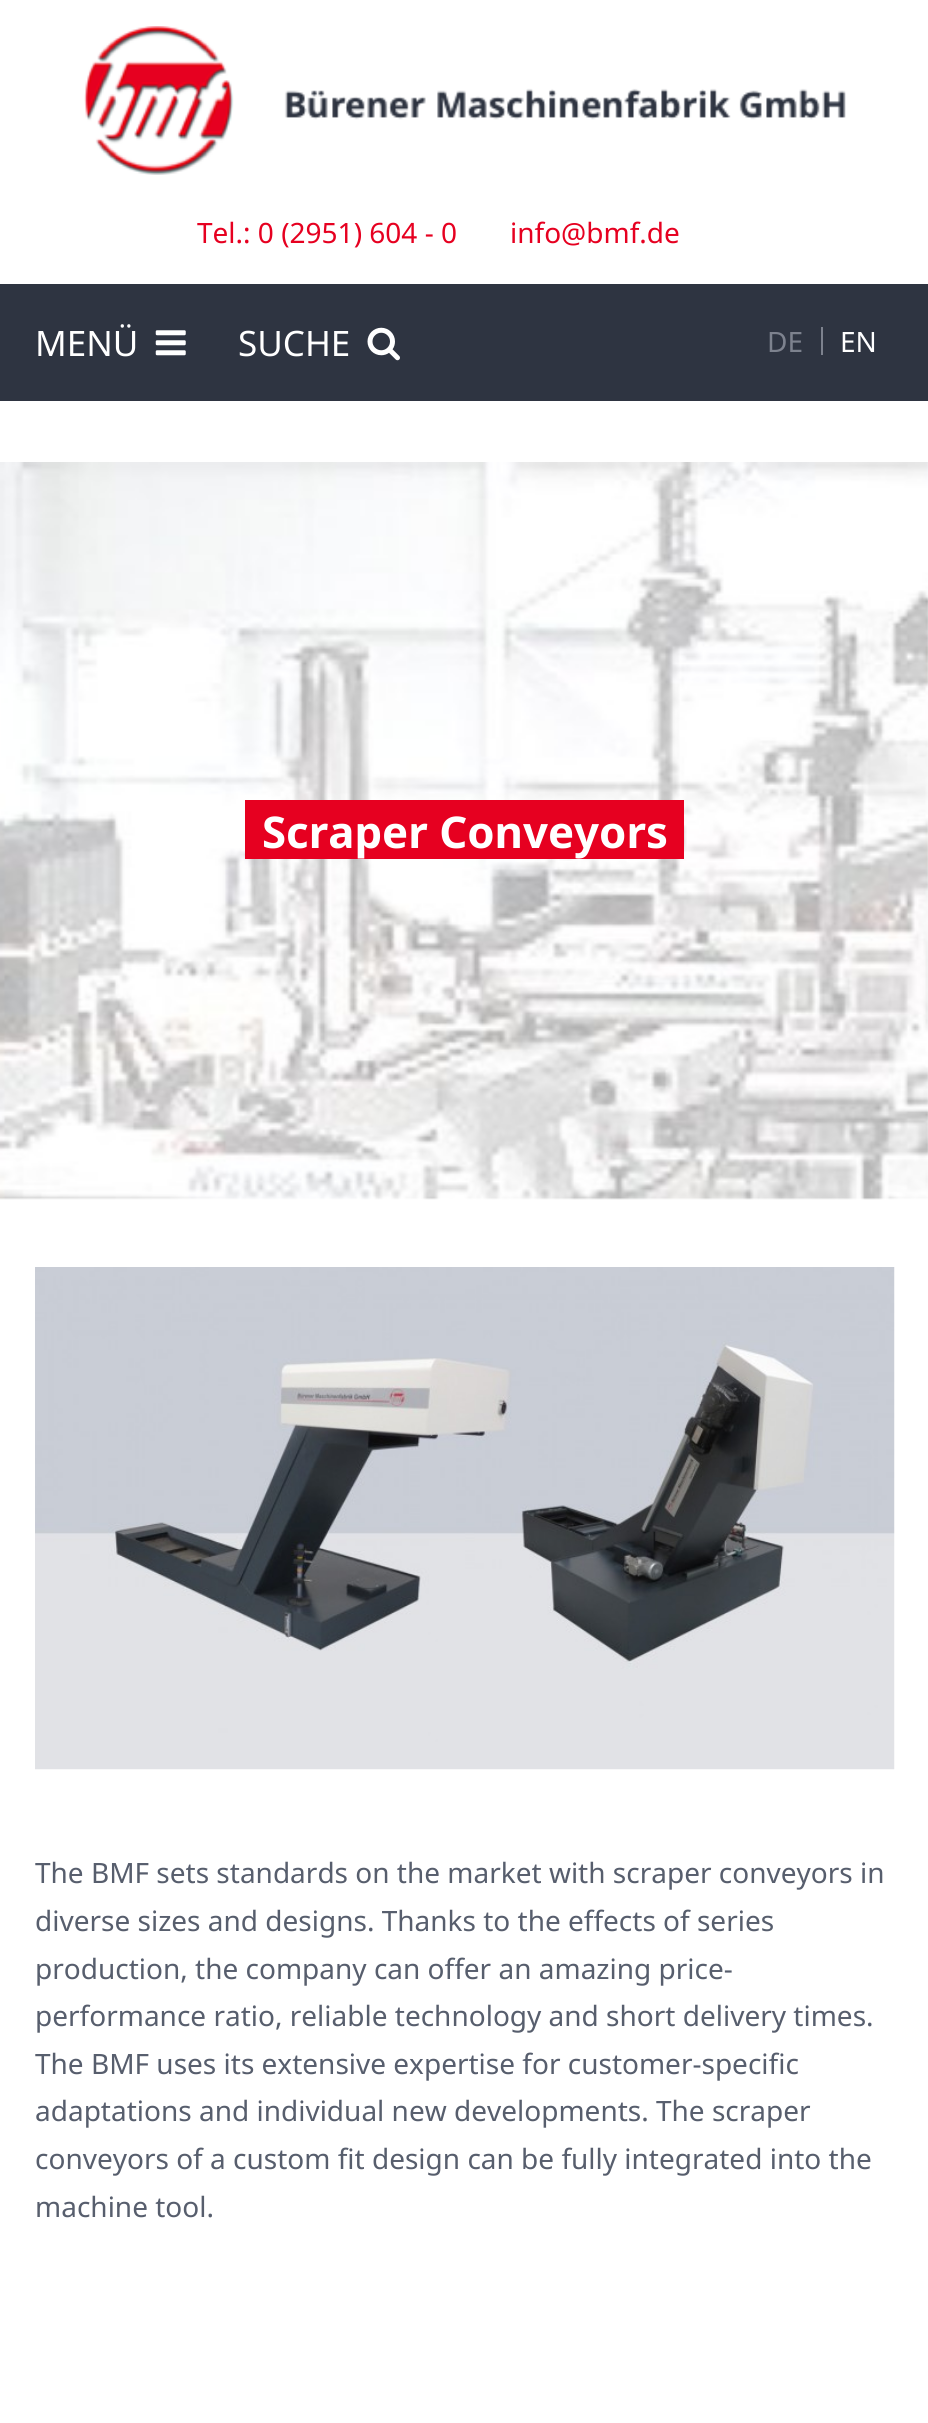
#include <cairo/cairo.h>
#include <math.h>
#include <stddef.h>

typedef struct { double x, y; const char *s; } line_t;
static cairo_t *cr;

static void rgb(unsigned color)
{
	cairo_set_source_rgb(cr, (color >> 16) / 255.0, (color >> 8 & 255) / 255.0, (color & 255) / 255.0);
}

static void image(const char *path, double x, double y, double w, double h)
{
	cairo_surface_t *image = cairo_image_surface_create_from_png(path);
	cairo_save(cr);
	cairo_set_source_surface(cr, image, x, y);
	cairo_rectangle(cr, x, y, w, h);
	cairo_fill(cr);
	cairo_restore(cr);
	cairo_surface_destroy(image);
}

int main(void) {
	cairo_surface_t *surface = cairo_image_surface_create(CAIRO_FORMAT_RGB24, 928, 2423);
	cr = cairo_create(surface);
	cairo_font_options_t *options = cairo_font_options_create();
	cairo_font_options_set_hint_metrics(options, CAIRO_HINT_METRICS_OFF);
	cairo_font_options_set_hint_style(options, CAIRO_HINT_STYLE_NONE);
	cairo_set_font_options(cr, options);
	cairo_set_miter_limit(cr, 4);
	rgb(0xffffff);
	cairo_paint(cr);
	image("img/1.png", 84, 26, 762, 149);
	rgb(0x2e3441);
	cairo_rectangle(cr, 0, 284, 928, 117);
	cairo_fill(cr);
	image("img/2.png", 155, 330, 31, 26);
	image("img/3.png", 367, 327, 33, 34);
	rgb(0x7d828e);
	cairo_rectangle(cr, 821, 327, 2, 28);
	cairo_fill(cr);
	image("img/4.png", 0, 462, 928, 738);
	rgb(0xe60020);
	cairo_rectangle(cr, 245, 800, 439, 59);
	cairo_fill(cr);
	image("img/5.png", 35, 1267, 860, 503);
	cairo_select_font_face(cr, "Noto Sans", CAIRO_FONT_SLANT_NORMAL, CAIRO_FONT_WEIGHT_NORMAL);
	cairo_set_font_size(cr, 28);
	cairo_move_to(cr, 197, 243);
	cairo_show_text(cr, "Tel.: 0 (2951) 604 - 0");
	cairo_move_to(cr, 510, 243);
	cairo_show_text(cr, "info@bmf.de");
	cairo_set_font_size(cr, 35);
	rgb(0xffffff);
	cairo_move_to(cr, 35, 356);
	cairo_show_text(cr, "MENÜ");
	cairo_move_to(cr, 238, 356);
	cairo_show_text(cr, "SUCHE");
	cairo_set_font_size(cr, 28);
	rgb(0x7d828e);
	cairo_move_to(cr, 767, 352);
	cairo_show_text(cr, "DE");
	rgb(0xffffff);
	cairo_move_to(cr, 840, 352);
	cairo_show_text(cr, "EN");
	cairo_select_font_face(cr, "Noto Sans", CAIRO_FONT_SLANT_NORMAL, CAIRO_FONT_WEIGHT_BOLD);
	cairo_set_font_size(cr, 43.75);
	cairo_move_to(cr, 262, 848);
	cairo_show_text(cr, "Scraper Conveyors");
	cairo_select_font_face(cr, "Noto Sans", CAIRO_FONT_SLANT_NORMAL, CAIRO_FONT_WEIGHT_NORMAL);
	cairo_set_font_size(cr, 28);
	rgb(0x575e6d);
	{
		static const line_t items[] = {
			{35, 1883, "The BMF sets standards on the market with scraper conveyors in"},
			{35, 1931, "diverse sizes and designs. Thanks to the effects of series"},
			{35, 1979, "production, the company can offer an amazing price-"},
			{35, 2026, "performance ratio, reliable technology and short delivery times."},
			{35, 2074, "The BMF uses its extensive expertise for customer-specific"},
			{35, 2121, "adaptations and individual new developments. The scraper"},
			{35, 2169, "conveyors of a custom fit design can be fully integrated into the"},
			{35, 2217, "machine tool."},
		};
		for (size_t i = 0; i < sizeof items / sizeof *items; i++) {
			cairo_move_to(cr, items[i].x, items[i].y);
			cairo_show_text(cr, items[i].s);
		}
	}
	cairo_surface_write_to_png(surface, "page.png");
	cairo_font_options_destroy(options);
	cairo_destroy(cr);
	cairo_surface_destroy(surface);
	return 0;
}
